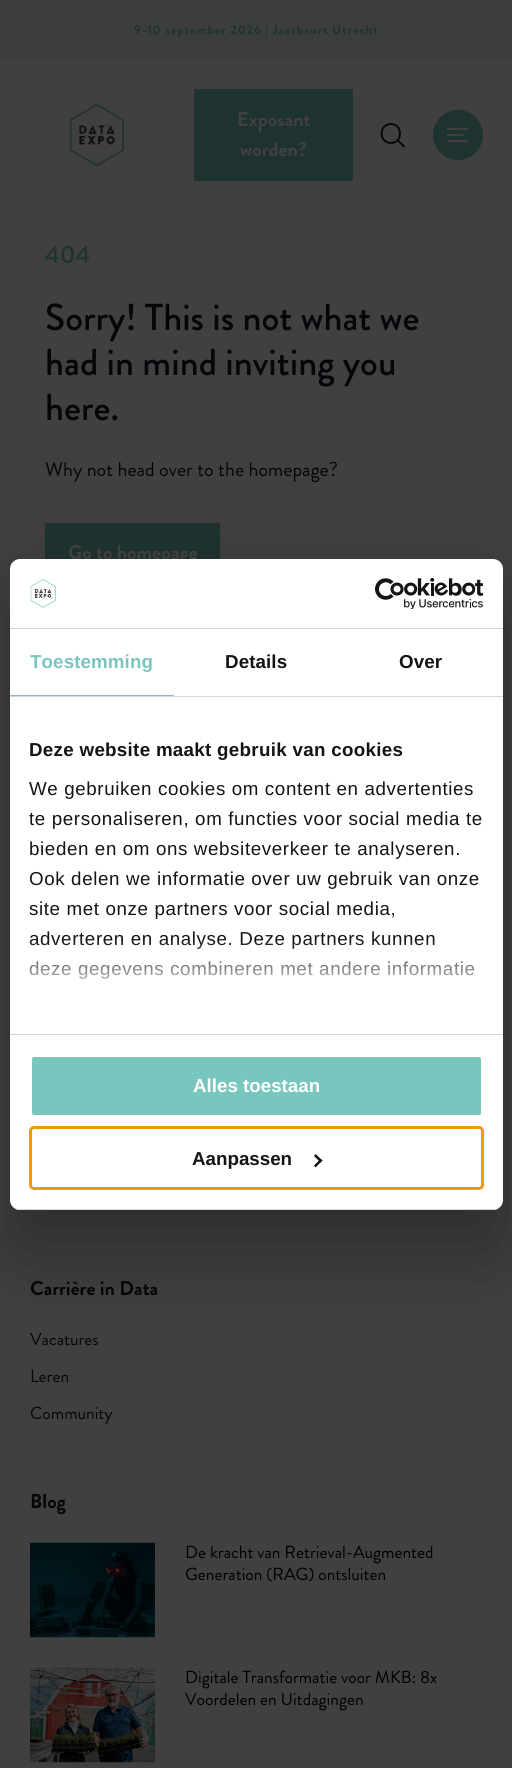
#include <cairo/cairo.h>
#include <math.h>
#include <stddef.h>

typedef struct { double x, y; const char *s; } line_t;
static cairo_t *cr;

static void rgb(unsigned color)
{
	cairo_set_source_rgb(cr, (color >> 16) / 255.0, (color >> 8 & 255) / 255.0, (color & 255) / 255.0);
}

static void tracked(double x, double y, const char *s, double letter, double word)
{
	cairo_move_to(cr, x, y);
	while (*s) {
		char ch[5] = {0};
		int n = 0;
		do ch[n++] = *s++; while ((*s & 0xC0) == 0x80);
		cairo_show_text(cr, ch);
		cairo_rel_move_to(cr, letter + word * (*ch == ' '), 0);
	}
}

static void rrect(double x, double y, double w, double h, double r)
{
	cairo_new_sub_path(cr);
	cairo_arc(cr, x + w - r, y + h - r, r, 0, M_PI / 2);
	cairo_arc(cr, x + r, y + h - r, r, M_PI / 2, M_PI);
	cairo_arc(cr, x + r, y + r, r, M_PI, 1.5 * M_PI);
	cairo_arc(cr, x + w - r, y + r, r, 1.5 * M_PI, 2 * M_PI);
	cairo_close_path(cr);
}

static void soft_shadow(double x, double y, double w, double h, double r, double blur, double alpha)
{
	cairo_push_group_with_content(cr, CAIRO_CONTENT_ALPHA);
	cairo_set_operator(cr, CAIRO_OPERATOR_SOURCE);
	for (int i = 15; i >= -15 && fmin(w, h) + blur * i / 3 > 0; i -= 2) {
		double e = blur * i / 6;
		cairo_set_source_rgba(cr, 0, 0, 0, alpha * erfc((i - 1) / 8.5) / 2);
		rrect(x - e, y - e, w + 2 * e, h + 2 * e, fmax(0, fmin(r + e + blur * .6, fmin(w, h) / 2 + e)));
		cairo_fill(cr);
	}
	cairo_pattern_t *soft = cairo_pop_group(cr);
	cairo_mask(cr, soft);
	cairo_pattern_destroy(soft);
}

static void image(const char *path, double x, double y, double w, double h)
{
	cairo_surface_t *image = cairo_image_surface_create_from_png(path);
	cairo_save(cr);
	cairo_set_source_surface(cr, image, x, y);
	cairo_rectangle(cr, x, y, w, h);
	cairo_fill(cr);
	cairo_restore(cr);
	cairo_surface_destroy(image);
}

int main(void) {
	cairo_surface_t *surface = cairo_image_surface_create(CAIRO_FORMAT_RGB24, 512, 1768);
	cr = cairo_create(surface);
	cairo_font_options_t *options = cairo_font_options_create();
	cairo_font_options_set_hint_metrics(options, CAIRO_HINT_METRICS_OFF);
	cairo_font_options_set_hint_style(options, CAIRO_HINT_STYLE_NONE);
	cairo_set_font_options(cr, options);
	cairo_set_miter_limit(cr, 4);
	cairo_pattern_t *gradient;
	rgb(0x404040);
	cairo_paint(cr);
	rgb(0x3c3e3e);
	cairo_rectangle(cr, 0, 0, 512, 59);
	cairo_fill(cr);
	image("img/1.png", 69, 103, 55, 64);
	rgb(0x1e3230);
	cairo_rectangle(cr, 194, 89, 159, 92);
	cairo_fill(cr);
	cairo_new_path(cr);
	cairo_move_to(cr, 391, 143);
	cairo_curve_to(cr, 403, 143, 403, 124, 391, 124);
	cairo_curve_to(cr, 378.5, 124, 378.5, 143, 391, 143);
	cairo_close_path(cr);
	cairo_move_to(cr, 398, 140.5);
	cairo_line_to(cr, 404.5, 147);
	rgb(0x04060a);
	cairo_set_line_width(cr, 1.9);
	cairo_set_line_join(cr, CAIRO_LINE_JOIN_ROUND);
	cairo_stroke(cr);
	rgb(0x1e3230);
	cairo_arc(cr, 458, 135, 25, 0, 2 * M_PI);
	cairo_fill(cr);
	cairo_new_path(cr);
	cairo_move_to(cr, 448, 135);
	cairo_line_to(cr, 462.5, 135);
	cairo_move_to(cr, 448, 129);
	cairo_line_to(cr, 467, 129);
	cairo_move_to(cr, 448, 141);
	cairo_line_to(cr, 467, 141);
	rgb(0x404040);
	cairo_set_line_width(cr, 2.1);
	cairo_set_line_cap(cr, CAIRO_LINE_CAP_ROUND);
	cairo_stroke(cr);
	rgb(0x1e3230);
	cairo_rectangle(cr, 45, 523, 175, 36);
	cairo_fill(cr);
	image("img/2.png", 30, 1542, 125, 96);
	image("img/3.png", 30, 1667, 125, 96);
	rgb(0x000000);
	soft_shadow(10, 599, 493, 651, 10, 42.5, 0.3);
	cairo_select_font_face(cr, "Brandon Grotesque", CAIRO_FONT_SLANT_NORMAL, CAIRO_FONT_WEIGHT_BOLD);
	cairo_set_font_size(cr, 12.5);
	rgb(0x1e3230);
	tracked(134, 34, "9-10 september 2026 | Jaarbeurs Utrecht", 1, 0);
	cairo_set_font_size(cr, 20);
	rgb(0x404040);
	cairo_move_to(cr, 237, 126);
	cairo_show_text(cr, "Exposant");
	cairo_move_to(cr, 240, 156);
	cairo_show_text(cr, "worden?");
	cairo_select_font_face(cr, "Brandon Grotesque Medium", CAIRO_FONT_SLANT_NORMAL, CAIRO_FONT_WEIGHT_NORMAL);
	cairo_set_font_size(cr, 25);
	rgb(0x1e3230);
	cairo_move_to(cr, 45, 263);
	cairo_show_text(cr, "404");
	cairo_set_font_size(cr, 37.5);
	rgb(0x04060a);
	{
		static const line_t items[] = {
			{45, 330, "Sorry! This is not what we"},
			{45, 375, "had in mind inviting you"},
			{45, 420, "here."},
		};
		for (size_t i = 0; i < sizeof items / sizeof *items; i++) {
			cairo_move_to(cr, items[i].x, items[i].y);
			cairo_show_text(cr, items[i].s);
		}
	}
	cairo_select_font_face(cr, "Brandon Grotesque", CAIRO_FONT_SLANT_NORMAL, CAIRO_FONT_WEIGHT_NORMAL);
	cairo_set_font_size(cr, 20);
	cairo_move_to(cr, 45, 476);
	cairo_show_text(cr, "Why not head over to the homepage?");
	cairo_select_font_face(cr, "Brandon Grotesque", CAIRO_FONT_SLANT_NORMAL, CAIRO_FONT_WEIGHT_BOLD);
	rgb(0x404040);
	cairo_move_to(cr, 68, 559);
	cairo_show_text(cr, "Go to homepage");
	rgb(0x04060a);
	cairo_move_to(cr, 30, 1295);
	cairo_show_text(cr, "Carrière in Data");
	cairo_select_font_face(cr, "Brandon Grotesque", CAIRO_FONT_SLANT_NORMAL, CAIRO_FONT_WEIGHT_NORMAL);
	cairo_set_font_size(cr, 17.5);
	{
		static const line_t items[] = {
			{30, 1345, "Vacatures"},
			{30, 1382, "Leren"},
			{30, 1419, "Community"},
		};
		for (size_t i = 0; i < sizeof items / sizeof *items; i++) {
			cairo_move_to(cr, items[i].x, items[i].y);
			cairo_show_text(cr, items[i].s);
		}
	}
	cairo_select_font_face(cr, "Brandon Grotesque", CAIRO_FONT_SLANT_NORMAL, CAIRO_FONT_WEIGHT_BOLD);
	cairo_set_font_size(cr, 20);
	cairo_move_to(cr, 30, 1508);
	cairo_show_text(cr, "Blog");
	cairo_select_font_face(cr, "Brandon Grotesque", CAIRO_FONT_SLANT_NORMAL, CAIRO_FONT_WEIGHT_NORMAL);
	cairo_set_font_size(cr, 17.5);
	rgb(0x000000);
	{
		static const line_t items[] = {
			{185, 1558, "De kracht van Retrieval-Augmented"},
			{185, 1580, "Generation (RAG) ontsluiten"},
			{185, 1683, "Digitale Transformatie voor MKB: 8x"},
			{185, 1705, "Voordelen en Uitdagingen"},
		};
		for (size_t i = 0; i < sizeof items / sizeof *items; i++) {
			cairo_move_to(cr, items[i].x, items[i].y);
			cairo_show_text(cr, items[i].s);
		}
	}
	rgb(0xffffff);
	rrect(10, 559, 493, 651, 10);
	cairo_fill(cr);
	rgb(0xd6d6d6);
	cairo_rectangle(cr, 10, 628, 493, 1);
	cairo_fill(cr);
	image("img/4.png", 30, 579, 26, 29);
	image("img/5.png", 375, 578, 109, 31);
	cairo_rectangle(cr, 10, 696, 493, 1);
	cairo_fill(cr);
	rgb(0x79c6bf);
	cairo_rectangle(cr, 10, 695, 164, 1);
	cairo_fill(cr);
	cairo_select_font_face(cr, "Liberation Sans", CAIRO_FONT_SLANT_NORMAL, CAIRO_FONT_WEIGHT_BOLD);
	cairo_set_font_size(cr, 18.75);
	tracked(30, 668, "Toestemming", 0.1, 0);
	rgb(0x141414);
	tracked(225, 668, "Details", 0.1, 0);
	tracked(399, 668, "Over", 0.1, 0);
	rgb(0xd6d6d6);
	cairo_rectangle(cr, 10, 1034, 493, 1);
	cairo_fill(cr);
	rgb(0x141414);
	tracked(29, 756, "Deze website maakt gebruik van cookies", 0.3, 0);
	cairo_select_font_face(cr, "Liberation Sans", CAIRO_FONT_SLANT_NORMAL, CAIRO_FONT_WEIGHT_NORMAL);
	{
		static const line_t items[] = {
			{29, 795, "We gebruiken cookies om content en advertenties"},
			{29, 825, "te personaliseren, om functies voor social media te"},
			{29, 855, "bieden en om ons websiteverkeer te analyseren."},
			{29, 885, "Ook delen we informatie over uw gebruik van onze"},
			{29, 915, "site met onze partners voor social media,"},
			{29, 945, "adverteren en analyse. Deze partners kunnen"},
			{29, 975, "deze gegevens combineren met andere informatie"},
		};
		for (size_t i = 0; i < sizeof items / sizeof *items; i++) {
			tracked(items[i].x, items[i].y, items[i].s, 0.62, 0);
		}
	}
	gradient = cairo_pattern_create_linear(248, 1034, 248, 940);
	cairo_pattern_add_color_stop_rgba(gradient, 0, 1, 1, 1, 1);
	cairo_pattern_add_color_stop_rgba(gradient, 0.5, 1, 1, 1, 0.8);
	cairo_pattern_add_color_stop_rgba(gradient, 1, 1, 1, 1, 0);
	cairo_set_source(cr, gradient);
	cairo_pattern_destroy(gradient);
	cairo_rectangle(cr, 29, 941, 445, 38);
	cairo_fill(cr);
	cairo_save(cr);
	rrect(10, 559, 493, 651, 10);
	cairo_clip(cr);
	rgb(0xd6d6d6);
	cairo_rectangle(cr, 10, 1209, 493, 1);
	cairo_fill(cr);
	cairo_restore(cr);
	rgb(0x79c6bf);
	rrect(30.5, 1055.5, 452, 61, 3.5);
	cairo_fill_preserve(cr);
	rgb(0xffffff);
	cairo_set_line_width(cr, 3);
	cairo_set_line_cap(cr, CAIRO_LINE_CAP_BUTT);
	cairo_set_line_join(cr, CAIRO_LINE_JOIN_MITER);
	cairo_stroke(cr);
	cairo_select_font_face(cr, "Liberation Sans", CAIRO_FONT_SLANT_NORMAL, CAIRO_FONT_WEIGHT_BOLD);
	cairo_move_to(cr, 193, 1092);
	cairo_show_text(cr, "Alles toestaan");
	rrect(30.5, 1127.5, 452, 61, 3.5);
	rgb(0xf49713);
	cairo_stroke(cr);
	rgb(0x141414);
	cairo_move_to(cr, 192, 1165);
	cairo_show_text(cr, "Aanpassen");
	cairo_new_path(cr);
	cairo_move_to(cr, 315.5, 1154);
	cairo_line_to(cr, 322.5, 1160.5);
	cairo_line_to(cr, 320.5, 1162.5);
	cairo_line_to(cr, 314, 1156);
	cairo_close_path(cr);
	cairo_fill(cr);
	cairo_new_path(cr);
	cairo_move_to(cr, 320.5, 1159);
	cairo_line_to(cr, 322.5, 1160.5);
	cairo_line_to(cr, 315.5, 1167.5);
	cairo_line_to(cr, 314, 1165.5);
	cairo_close_path(cr);
	cairo_fill(cr);
	cairo_surface_write_to_png(surface, "page.png");
	cairo_font_options_destroy(options);
	cairo_destroy(cr);
	cairo_surface_destroy(surface);
	return 0;
}
